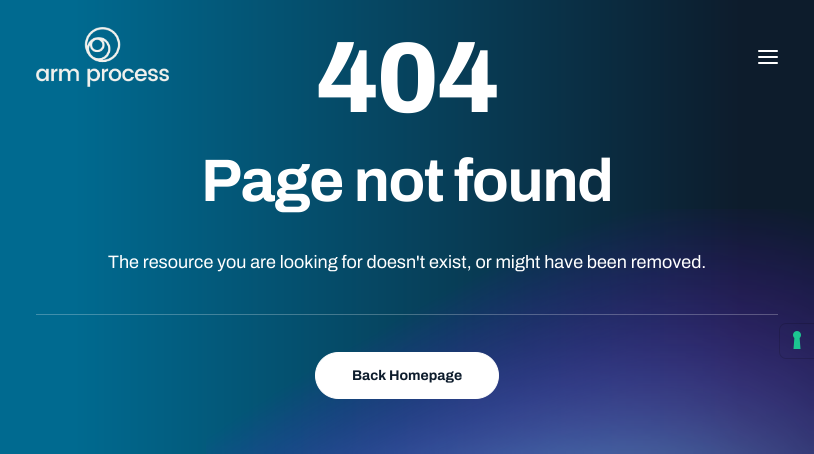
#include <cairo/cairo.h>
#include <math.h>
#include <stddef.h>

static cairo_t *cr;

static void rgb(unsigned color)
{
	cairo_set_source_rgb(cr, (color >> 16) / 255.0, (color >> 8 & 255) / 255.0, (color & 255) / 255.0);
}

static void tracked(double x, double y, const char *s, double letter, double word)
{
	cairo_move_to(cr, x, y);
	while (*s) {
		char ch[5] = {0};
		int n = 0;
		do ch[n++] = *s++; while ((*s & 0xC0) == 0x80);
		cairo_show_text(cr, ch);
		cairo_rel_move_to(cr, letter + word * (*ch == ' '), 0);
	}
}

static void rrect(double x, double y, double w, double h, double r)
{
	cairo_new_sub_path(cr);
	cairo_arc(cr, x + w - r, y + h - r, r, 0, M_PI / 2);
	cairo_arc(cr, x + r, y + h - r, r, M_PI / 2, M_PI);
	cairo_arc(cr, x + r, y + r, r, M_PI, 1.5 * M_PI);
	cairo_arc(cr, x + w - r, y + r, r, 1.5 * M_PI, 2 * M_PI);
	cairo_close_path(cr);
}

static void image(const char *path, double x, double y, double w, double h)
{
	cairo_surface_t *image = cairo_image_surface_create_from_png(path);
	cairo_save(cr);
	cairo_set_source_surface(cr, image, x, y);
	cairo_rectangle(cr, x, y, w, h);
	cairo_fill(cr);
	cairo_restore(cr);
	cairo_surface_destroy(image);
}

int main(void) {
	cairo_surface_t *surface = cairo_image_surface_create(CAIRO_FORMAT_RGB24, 814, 454);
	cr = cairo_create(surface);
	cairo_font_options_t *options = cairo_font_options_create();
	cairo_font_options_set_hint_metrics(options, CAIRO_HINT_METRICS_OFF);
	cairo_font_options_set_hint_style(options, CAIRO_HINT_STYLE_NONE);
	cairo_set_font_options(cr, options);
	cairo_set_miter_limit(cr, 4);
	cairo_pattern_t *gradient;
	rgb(0xffffff);
	cairo_paint(cr);
	gradient = cairo_pattern_create_linear(814, 227, 0, 227);
	cairo_pattern_add_color_stop_rgba(gradient, 0.09, 0.051, 0.11, 0.173, 1);
	cairo_pattern_add_color_stop_rgba(gradient, 0.91, 0, 0.416, 0.565, 1);
	cairo_set_source(cr, gradient);
	cairo_pattern_destroy(gradient);
	cairo_rectangle(cr, 0, 0, 814, 454);
	cairo_fill(cr);
	image("img/1.png", 36, 27, 133, 60);
	rgb(0xffffff);
	rrect(758, 56, 20, 2, 1);
	cairo_fill(cr);
	rrect(758, 50, 20, 2, 1);
	cairo_fill(cr);
	rrect(758, 62, 20, 2, 1);
	cairo_fill(cr);
	image("img/2.png", 206, 209, 608, 245);
	cairo_set_source_rgba(cr, 1, 1, 1, 0.25);
	cairo_rectangle(cr, 36, 314, 742, 1);
	cairo_fill(cr);
	rgb(0xffffff);
	rrect(315.5, 352.5, 183, 46, 23);
	cairo_fill_preserve(cr);
	cairo_set_line_width(cr, 1);
	cairo_stroke(cr);
	cairo_new_path(cr);
	cairo_move_to(cr, 786, 323.5);
	cairo_line_to(cr, 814.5, 323.5);
	cairo_line_to(cr, 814.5, 358.5);
	cairo_line_to(cr, 786, 358.5);
	cairo_curve_to(cr, 782.5, 358.5, 779.5, 355.5, 779.5, 352);
	cairo_line_to(cr, 779.5, 330);
	cairo_curve_to(cr, 779.5, 326.5, 782.5, 323.5, 786, 323.5);
	cairo_close_path(cr);
	cairo_set_source_rgba(cr, 0, 0, 0, 0.15);
	cairo_stroke(cr);
	image("img/3.png", 793, 331, 8, 18);
	cairo_select_font_face(cr, "Archivo ExtraBold", CAIRO_FONT_SLANT_NORMAL, CAIRO_FONT_WEIGHT_NORMAL);
	cairo_set_font_size(cr, 100);
	rgb(0xffffff);
	tracked(316, 112, "404", -2, 0);
	cairo_select_font_face(cr, "Archivo", CAIRO_FONT_SLANT_NORMAL, CAIRO_FONT_WEIGHT_BOLD);
	cairo_set_font_size(cr, 60);
	tracked(201, 201, "Page not found", -1.25, 0);
	cairo_select_font_face(cr, "Archivo", CAIRO_FONT_SLANT_NORMAL, CAIRO_FONT_WEIGHT_NORMAL);
	cairo_set_font_size(cr, 18);
	cairo_move_to(cr, 108, 268);
	cairo_show_text(cr, "The resource you are looking for doesn't exist, or might have been removed.");
	cairo_select_font_face(cr, "Archivo", CAIRO_FONT_SLANT_NORMAL, CAIRO_FONT_WEIGHT_BOLD);
	cairo_set_font_size(cr, 14);
	rgb(0x0d1c2c);
	cairo_move_to(cr, 352, 380);
	cairo_show_text(cr, "Back Homepage");
	cairo_surface_write_to_png(surface, "page.png");
	cairo_font_options_destroy(options);
	cairo_destroy(cr);
	cairo_surface_destroy(surface);
	return 0;
}
